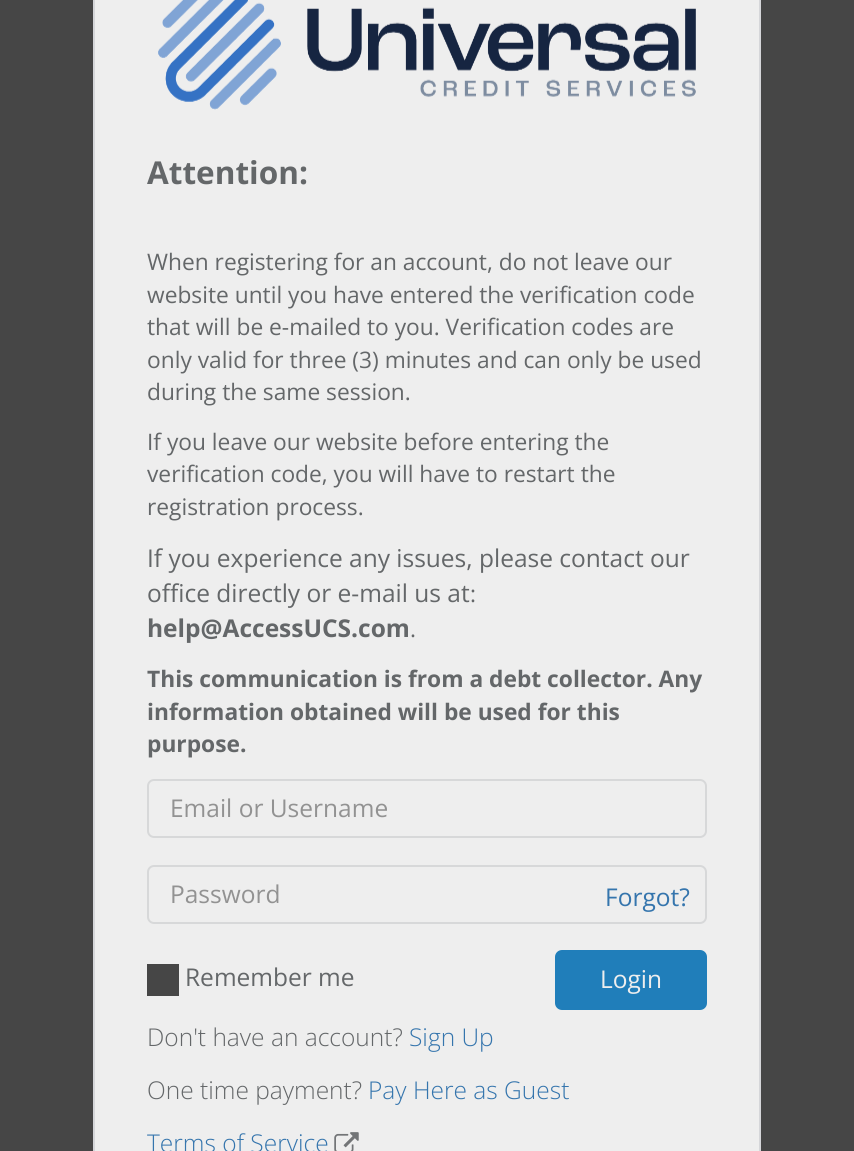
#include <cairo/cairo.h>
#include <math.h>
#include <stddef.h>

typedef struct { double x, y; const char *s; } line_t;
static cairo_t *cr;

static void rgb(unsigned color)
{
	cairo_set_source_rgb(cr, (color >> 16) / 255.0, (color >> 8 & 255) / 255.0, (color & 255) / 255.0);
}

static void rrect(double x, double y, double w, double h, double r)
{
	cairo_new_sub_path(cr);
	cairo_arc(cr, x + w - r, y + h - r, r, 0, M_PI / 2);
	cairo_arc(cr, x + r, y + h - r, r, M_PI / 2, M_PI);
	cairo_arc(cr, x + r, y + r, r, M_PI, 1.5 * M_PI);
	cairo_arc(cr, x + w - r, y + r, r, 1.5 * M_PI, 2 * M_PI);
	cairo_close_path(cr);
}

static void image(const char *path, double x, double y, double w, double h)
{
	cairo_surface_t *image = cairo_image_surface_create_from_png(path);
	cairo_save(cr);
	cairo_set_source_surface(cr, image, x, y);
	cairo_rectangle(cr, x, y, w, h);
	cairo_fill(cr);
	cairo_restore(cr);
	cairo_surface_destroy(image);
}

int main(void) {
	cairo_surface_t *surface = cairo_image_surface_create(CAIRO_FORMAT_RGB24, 854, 1151);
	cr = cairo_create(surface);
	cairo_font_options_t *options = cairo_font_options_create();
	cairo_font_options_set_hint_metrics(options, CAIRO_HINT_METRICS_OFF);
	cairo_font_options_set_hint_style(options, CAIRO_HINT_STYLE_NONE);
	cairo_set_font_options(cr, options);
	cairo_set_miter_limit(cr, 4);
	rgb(0x464646);
	cairo_paint(cr);
	rgb(0xeeeeee);
	cairo_rectangle(cr, 94, -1, 666, 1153);
	cairo_fill_preserve(cr);
	rgb(0xd5d6d9);
	cairo_stroke(cr);
	image("img/1.png", 158, 0, 538, 110);
	rrect(148, 780, 558, 57, 6);
	rgb(0xd7d8d9);
	cairo_stroke(cr);
	rrect(148, 866, 558, 57, 6);
	cairo_stroke(cr);
	rgb(0x464646);
	cairo_rectangle(cr, 147, 964, 32, 32);
	cairo_fill(cr);
	rgb(0x207eba);
	rrect(556, 951, 150, 58, 6);
	cairo_fill_preserve(cr);
	cairo_stroke(cr);
	image("img/2.png", 334, 1132, 25, 19);
	cairo_select_font_face(cr, "Open Sans", CAIRO_FONT_SLANT_NORMAL, CAIRO_FONT_WEIGHT_BOLD);
	cairo_set_font_size(cr, 31.5);
	rgb(0x646769);
	cairo_move_to(cr, 147, 184);
	cairo_show_text(cr, "Attention:");
	cairo_select_font_face(cr, "Open Sans", CAIRO_FONT_SLANT_NORMAL, CAIRO_FONT_WEIGHT_NORMAL);
	cairo_set_font_size(cr, 22.75);
	{
		static const line_t items[] = {
			{147, 270, "When registering for an account, do not leave our"},
			{147, 303, "website until you have entered the verification code"},
			{147, 335, "that will be e-mailed to you. Verification codes are"},
			{147, 368, "only valid for three (3) minutes and can only be used"},
			{147, 400, "during the same session."},
			{147, 450, "If you leave our website before entering the"},
			{147, 482, "verification code, you will have to restart the"},
			{147, 515, "registration process."},
		};
		for (size_t i = 0; i < sizeof items / sizeof *items; i++) {
			cairo_move_to(cr, items[i].x, items[i].y);
			cairo_show_text(cr, items[i].s);
		}
	}
	cairo_set_font_size(cr, 24.5);
	cairo_move_to(cr, 147, 567);
	cairo_show_text(cr, "If you experience any issues, please contact our");
	cairo_move_to(cr, 147, 602);
	cairo_show_text(cr, "office directly or e-mail us at");
	cairo_set_font_size(cr, 22.75);
	cairo_move_to(cr, 470, 602);
	cairo_show_text(cr, ":");
	cairo_select_font_face(cr, "Open Sans", CAIRO_FONT_SLANT_NORMAL, CAIRO_FONT_WEIGHT_BOLD);
	cairo_set_font_size(cr, 24.5);
	cairo_move_to(cr, 147, 637);
	cairo_show_text(cr, "help@AccessUCS.com");
	cairo_select_font_face(cr, "Open Sans", CAIRO_FONT_SLANT_NORMAL, CAIRO_FONT_WEIGHT_NORMAL);
	cairo_set_font_size(cr, 22.75);
	cairo_move_to(cr, 410, 637);
	cairo_show_text(cr, ".");
	cairo_select_font_face(cr, "Open Sans", CAIRO_FONT_SLANT_NORMAL, CAIRO_FONT_WEIGHT_BOLD);
	{
		static const line_t items[] = {
			{147, 687, "This communication is from a debt collector. Any"},
			{147, 720, "information obtained will be used for this"},
			{147, 752, "purpose."},
		};
		for (size_t i = 0; i < sizeof items / sizeof *items; i++) {
			cairo_move_to(cr, items[i].x, items[i].y);
			cairo_show_text(cr, items[i].s);
		}
	}
	cairo_select_font_face(cr, "Open Sans", CAIRO_FONT_SLANT_NORMAL, CAIRO_FONT_WEIGHT_NORMAL);
	cairo_set_font_size(cr, 24.5);
	rgb(0x929292);
	cairo_move_to(cr, 170, 817);
	cairo_show_text(cr, "Email or Username");
	cairo_move_to(cr, 170, 903);
	cairo_show_text(cr, "Password");
	rgb(0x3575ad);
	cairo_move_to(cr, 605, 906);
	cairo_show_text(cr, "Forgot?");
	rgb(0x646769);
	cairo_move_to(cr, 185, 986);
	cairo_show_text(cr, "Remember me");
	rgb(0xeeeeee);
	cairo_move_to(cr, 600, 988);
	cairo_show_text(cr, "Login");
	cairo_select_font_face(cr, "Open Sans Light", CAIRO_FONT_SLANT_NORMAL, CAIRO_FONT_WEIGHT_NORMAL);
	rgb(0x646769);
	cairo_move_to(cr, 147, 1046);
	cairo_show_text(cr, "Don't have an account?");
	rgb(0x3575ad);
	cairo_move_to(cr, 409, 1046);
	cairo_show_text(cr, "Sign Up");
	rgb(0x646769);
	cairo_move_to(cr, 147, 1099);
	cairo_show_text(cr, "One time payment?");
	rgb(0x3575ad);
	cairo_move_to(cr, 368, 1099);
	cairo_show_text(cr, "Pay Here as Guest");
	cairo_move_to(cr, 147, 1152);
	cairo_show_text(cr, "Terms of Service");
	cairo_surface_write_to_png(surface, "page.png");
	cairo_font_options_destroy(options);
	cairo_destroy(cr);
	cairo_surface_destroy(surface);
	return 0;
}
